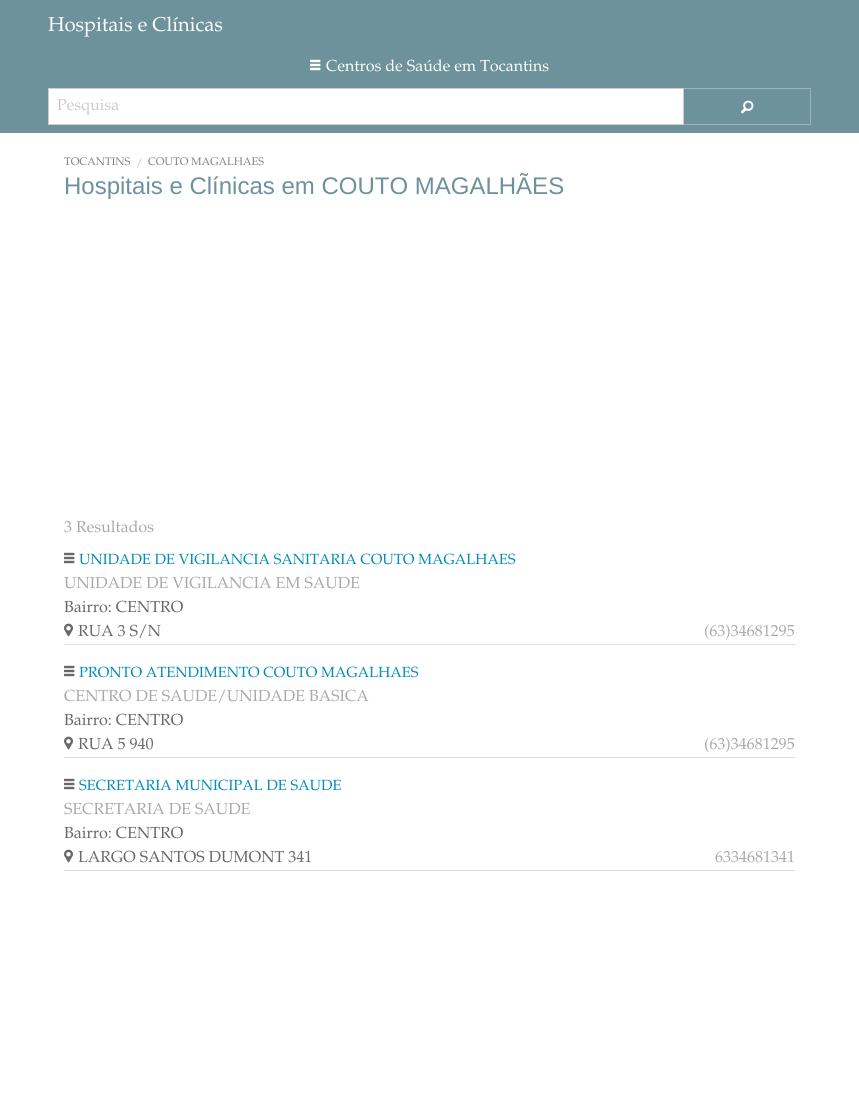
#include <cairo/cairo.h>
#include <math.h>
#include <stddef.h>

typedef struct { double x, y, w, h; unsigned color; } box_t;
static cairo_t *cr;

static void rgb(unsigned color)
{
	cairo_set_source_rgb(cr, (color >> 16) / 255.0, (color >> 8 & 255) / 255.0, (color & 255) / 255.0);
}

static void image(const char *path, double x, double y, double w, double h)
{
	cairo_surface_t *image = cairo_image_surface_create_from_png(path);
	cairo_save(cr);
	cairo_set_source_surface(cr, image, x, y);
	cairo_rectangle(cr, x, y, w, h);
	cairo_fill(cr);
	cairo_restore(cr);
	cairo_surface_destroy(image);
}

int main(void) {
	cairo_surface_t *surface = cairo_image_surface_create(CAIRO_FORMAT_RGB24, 859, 1106);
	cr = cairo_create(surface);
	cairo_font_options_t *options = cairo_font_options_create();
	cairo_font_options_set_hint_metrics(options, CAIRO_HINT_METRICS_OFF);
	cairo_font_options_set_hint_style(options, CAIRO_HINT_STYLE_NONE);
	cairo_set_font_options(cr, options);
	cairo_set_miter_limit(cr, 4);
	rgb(0xffffff);
	cairo_paint(cr);
	rgb(0x6d929b);
	cairo_rectangle(cr, 0, 0, 859, 133);
	cairo_fill(cr);
	image("img/1.png", 48, 16, 175, 21);
	image("img/2.png", 310, 59, 11, 12);
	image("img/3.png", 326, 59, 223, 13);
	rgb(0xffffff);
	cairo_rectangle(cr, 48.5, 88.5, 635, 36);
	cairo_fill_preserve(cr);
	rgb(0xcccccc);
	cairo_set_line_width(cr, 1);
	cairo_stroke(cr);
	image("img/4.png", 57, 99, 62, 16);
	{
		static const box_t items[] = {
			{684, 88, 127, 1, 0x9db2bb},
			{810, 88, 1, 37, 0x9db2bb},
			{684, 124, 127, 1, 0x9db2bb},
		};
		for (size_t i = 0; i < sizeof items / sizeof *items; i++) {
			rgb(items[i].color);
			cairo_rectangle(cr, items[i].x, items[i].y, items[i].w, items[i].h);
			cairo_fill(cr);
		}
	}
	image("img/5.png", 741, 100, 13, 14);
	image("img/6.png", 64, 157, 66, 9);
	rgb(0xaaaaaa);
	cairo_new_path(cr);
	cairo_move_to(cr, 141.5, 158);
	cairo_line_to(cr, 141, 158);
	cairo_line_to(cr, 137, 167.5);
	cairo_line_to(cr, 137.5, 167.5);
	cairo_close_path(cr);
	cairo_fill(cr);
	image("img/7.png", 148, 157, 116, 9);
	image("img/8.png", 64, 520, 90, 13);
	image("img/9.png", 64, 552, 11, 12);
	image("img/10.png", 79, 553, 437, 12);
	image("img/11.png", 64, 576, 296, 13);
	image("img/12.png", 64, 600, 119, 13);
	image("img/13.png", 64, 623, 9, 14);
	image("img/14.png", 78, 624, 83, 14);
	image("img/15.png", 705, 624, 89, 16);
	rgb(0xdddddd);
	cairo_rectangle(cr, 64, 644, 731, 1);
	cairo_fill(cr);
	image("img/9.png", 64, 665, 11, 12);
	image("img/16.png", 79, 666, 340, 12);
	image("img/17.png", 64, 689, 305, 14);
	image("img/12.png", 64, 713, 119, 13);
	image("img/13.png", 64, 736, 9, 14);
	image("img/18.png", 78, 737, 75, 13);
	image("img/15.png", 705, 737, 89, 16);
	cairo_rectangle(cr, 64, 757, 731, 1);
	cairo_fill(cr);
	image("img/9.png", 64, 778, 11, 12);
	image("img/19.png", 79, 779, 262, 12);
	image("img/20.png", 64, 802, 186, 13);
	image("img/12.png", 64, 826, 119, 13);
	image("img/13.png", 64, 849, 9, 14);
	image("img/21.png", 78, 850, 233, 13);
	image("img/22.png", 715, 851, 79, 12);
	cairo_rectangle(cr, 64, 870, 731, 1);
	cairo_fill(cr);
	cairo_select_font_face(cr, "Liberation Sans", CAIRO_FONT_SLANT_NORMAL, CAIRO_FONT_WEIGHT_NORMAL);
	cairo_set_font_size(cr, 24);
	rgb(0x6d929b);
	cairo_move_to(cr, 64, 194);
	cairo_show_text(cr, "Hospitais e Clínicas em COUTO MAGALHÃES");
	cairo_surface_write_to_png(surface, "page.png");
	cairo_font_options_destroy(options);
	cairo_destroy(cr);
	cairo_surface_destroy(surface);
	return 0;
}
